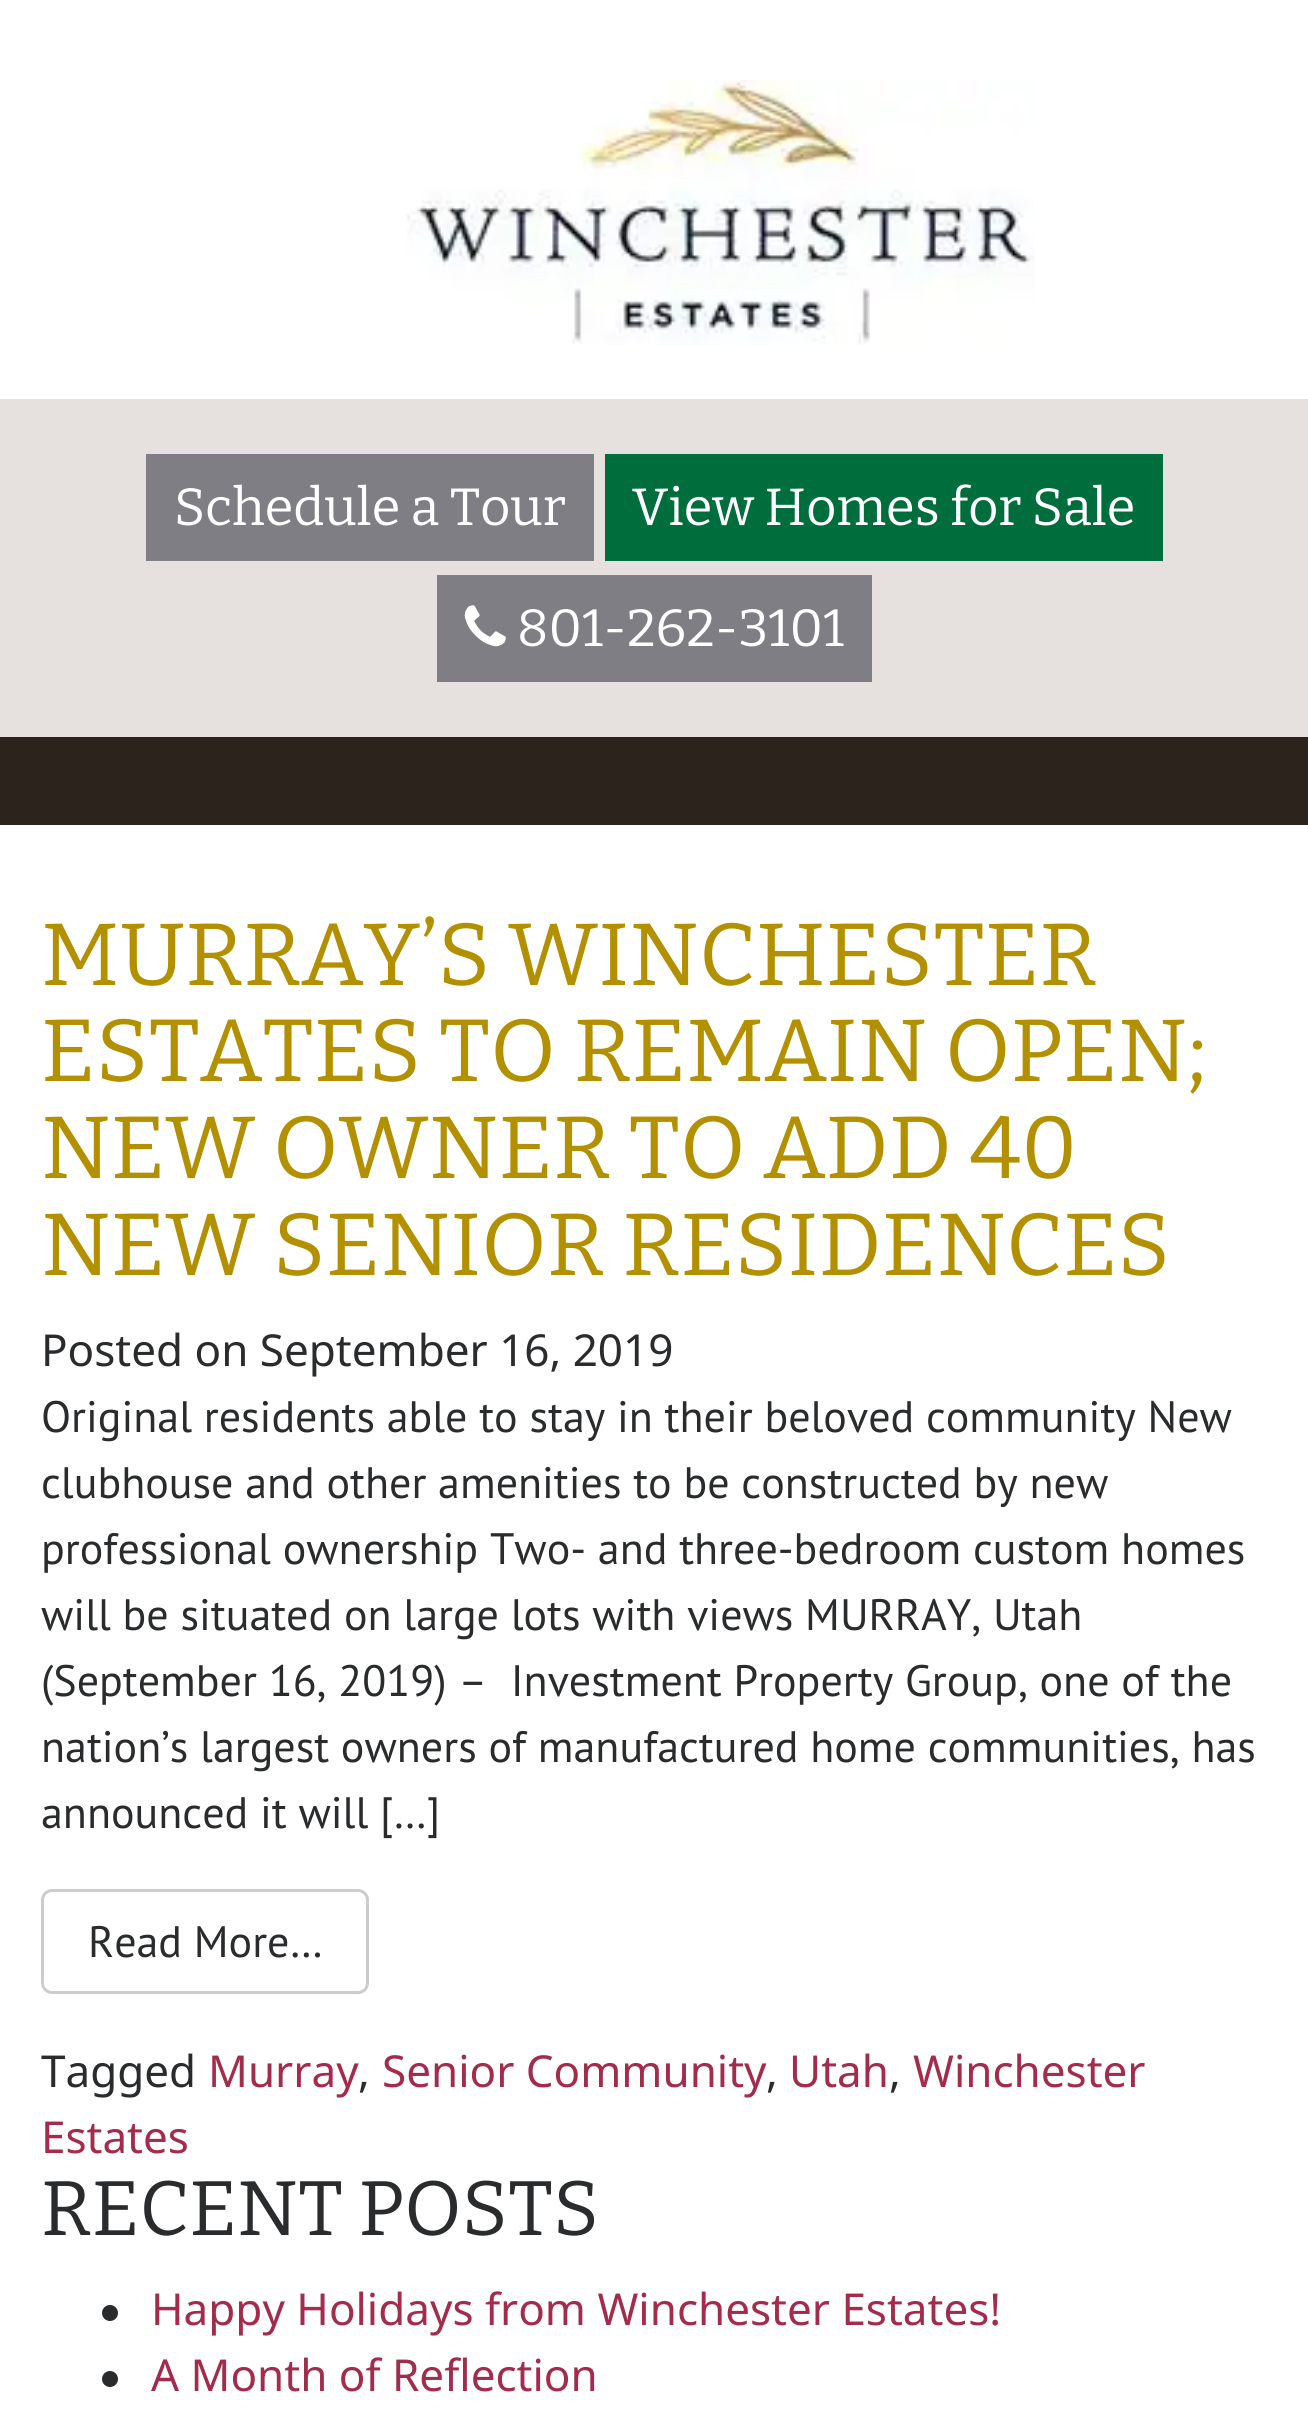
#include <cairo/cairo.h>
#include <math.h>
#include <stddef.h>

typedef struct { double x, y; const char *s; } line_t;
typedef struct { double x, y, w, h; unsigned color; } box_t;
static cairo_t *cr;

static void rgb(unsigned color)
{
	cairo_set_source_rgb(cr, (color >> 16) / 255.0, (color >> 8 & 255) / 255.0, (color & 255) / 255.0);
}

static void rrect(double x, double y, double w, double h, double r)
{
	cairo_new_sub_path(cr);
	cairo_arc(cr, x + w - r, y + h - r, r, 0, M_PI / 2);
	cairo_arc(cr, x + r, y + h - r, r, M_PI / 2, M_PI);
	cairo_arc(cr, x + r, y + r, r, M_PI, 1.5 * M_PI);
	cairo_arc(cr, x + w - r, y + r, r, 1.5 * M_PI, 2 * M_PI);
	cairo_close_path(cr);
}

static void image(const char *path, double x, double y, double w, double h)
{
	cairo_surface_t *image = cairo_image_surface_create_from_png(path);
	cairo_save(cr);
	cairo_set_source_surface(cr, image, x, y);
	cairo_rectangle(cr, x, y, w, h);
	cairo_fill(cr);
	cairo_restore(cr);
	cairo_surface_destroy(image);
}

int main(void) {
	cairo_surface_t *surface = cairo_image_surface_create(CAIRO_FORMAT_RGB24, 1308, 2436);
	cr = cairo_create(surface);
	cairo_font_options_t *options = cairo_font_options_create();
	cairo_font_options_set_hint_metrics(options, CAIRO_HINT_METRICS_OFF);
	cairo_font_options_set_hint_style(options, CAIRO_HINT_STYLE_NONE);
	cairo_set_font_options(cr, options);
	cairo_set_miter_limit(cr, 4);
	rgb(0xffffff);
	cairo_paint(cr);
	image("img/1.png", 406, 80, 629, 265);
	{
		static const box_t items[] = {
			{0, 399, 1308, 338, 0xe6e1de},
			{146, 454, 448, 107, 0x7f7e85},
			{605, 454, 558, 107, 0x006e3c},
			{437, 575, 435, 107, 0x7f7e85},
		};
		for (size_t i = 0; i < sizeof items / sizeof *items; i++) {
			rgb(items[i].color);
			cairo_rectangle(cr, items[i].x, items[i].y, items[i].w, items[i].h);
			cairo_fill(cr);
		}
	}
	image("img/2.png", 464, 605, 42, 42);
	rgb(0x2c231c);
	cairo_rectangle(cr, 0, 737, 1308, 88);
	cairo_fill(cr);
	rrect(42.5, 1890.5, 325, 102, 9.5);
	rgb(0xcccccc);
	cairo_set_line_width(cr, 3);
	cairo_stroke(cr);
	rgb(0x292b2c);
	cairo_arc(cr, 110, 2313, 8, 0, 2 * M_PI);
	cairo_fill(cr);
	cairo_arc(cr, 110, 2379, 8, 0, 2 * M_PI);
	cairo_fill(cr);
	cairo_select_font_face(cr, "Bitter Thin", CAIRO_FONT_SLANT_NORMAL, CAIRO_FONT_WEIGHT_NORMAL);
	cairo_set_font_size(cr, 52.25);
	rgb(0xffffff);
	{
		static const line_t items[] = {
			{174, 525, "Schedule a Tour"},
			{632, 525, "View Homes for Sale"},
			{517, 646, "801-262-3101"},
		};
		for (size_t i = 0; i < sizeof items / sizeof *items; i++) {
			cairo_move_to(cr, items[i].x, items[i].y);
			cairo_show_text(cr, items[i].s);
		}
	}
	cairo_set_font_size(cr, 88);
	rgb(0xb29000);
	{
		static const line_t items[] = {
			{41, 985, "MURRAY’S WINCHESTER"},
			{41, 1081, "ESTATES TO REMAIN OPEN;"},
			{41, 1178, "NEW OWNER TO ADD 40"},
			{41, 1275, "NEW SENIOR RESIDENCES"},
		};
		for (size_t i = 0; i < sizeof items / sizeof *items; i++) {
			cairo_move_to(cr, items[i].x, items[i].y);
			cairo_show_text(cr, items[i].s);
		}
	}
	cairo_select_font_face(cr, "Noto Sans", CAIRO_FONT_SLANT_NORMAL, CAIRO_FONT_WEIGHT_NORMAL);
	cairo_set_font_size(cr, 44);
	rgb(0x292b2c);
	cairo_move_to(cr, 41, 1366);
	cairo_show_text(cr, "Posted on September 16, 2019");
	cairo_select_font_face(cr, "PT Sans", CAIRO_FONT_SLANT_NORMAL, CAIRO_FONT_WEIGHT_NORMAL);
	{
		static const line_t items[] = {
			{41, 1432, "Original residents able to stay in their beloved community New"},
			{41, 1498, "clubhouse and other amenities to be constructed by new"},
			{41, 1564, "professional ownership Two- and three-bedroom custom homes"},
			{41, 1630, "will be situated on large lots with views MURRAY, Utah"},
			{41, 1696, "(September 16, 2019) –  Investment Property Group, one of the"},
			{41, 1762, "nation’s largest owners of manufactured home communities, has"},
			{41, 1828, "announced it will […]"},
			{88, 1957, "Read More…"},
		};
		for (size_t i = 0; i < sizeof items / sizeof *items; i++) {
			cairo_move_to(cr, items[i].x, items[i].y);
			cairo_show_text(cr, items[i].s);
		}
	}
	cairo_select_font_face(cr, "Noto Sans", CAIRO_FONT_SLANT_NORMAL, CAIRO_FONT_WEIGHT_NORMAL);
	cairo_move_to(cr, 41, 2087);
	cairo_show_text(cr, "Tagged");
	rgb(0xa32b4b);
	cairo_move_to(cr, 208, 2087);
	cairo_show_text(cr, "Murray");
	rgb(0x292b2c);
	cairo_move_to(cr, 358, 2087);
	cairo_show_text(cr, ",");
	rgb(0xa32b4b);
	cairo_move_to(cr, 382, 2087);
	cairo_show_text(cr, "Senior Community");
	rgb(0x292b2c);
	cairo_move_to(cr, 766, 2087);
	cairo_show_text(cr, ",");
	rgb(0xa32b4b);
	cairo_move_to(cr, 789, 2087);
	cairo_show_text(cr, "Utah");
	rgb(0x292b2c);
	cairo_move_to(cr, 889, 2087);
	cairo_show_text(cr, ",");
	rgb(0xa32b4b);
	cairo_move_to(cr, 913, 2087);
	cairo_show_text(cr, "Winchester");
	cairo_move_to(cr, 41, 2153);
	cairo_show_text(cr, "Estates");
	cairo_select_font_face(cr, "Bitter Thin", CAIRO_FONT_SLANT_NORMAL, CAIRO_FONT_WEIGHT_NORMAL);
	cairo_set_font_size(cr, 77);
	rgb(0x292b2c);
	cairo_move_to(cr, 41, 2235);
	cairo_show_text(cr, "RECENT POSTS");
	cairo_select_font_face(cr, "Noto Sans", CAIRO_FONT_SLANT_NORMAL, CAIRO_FONT_WEIGHT_NORMAL);
	cairo_set_font_size(cr, 44);
	rgb(0xa32b4b);
	cairo_move_to(cr, 151, 2325);
	cairo_show_text(cr, "Happy Holidays from Winchester Estates!");
	cairo_move_to(cr, 151, 2391);
	cairo_show_text(cr, "A Month of Reflection");
	cairo_surface_write_to_png(surface, "page.png");
	cairo_font_options_destroy(options);
	cairo_destroy(cr);
	cairo_surface_destroy(surface);
	return 0;
}
